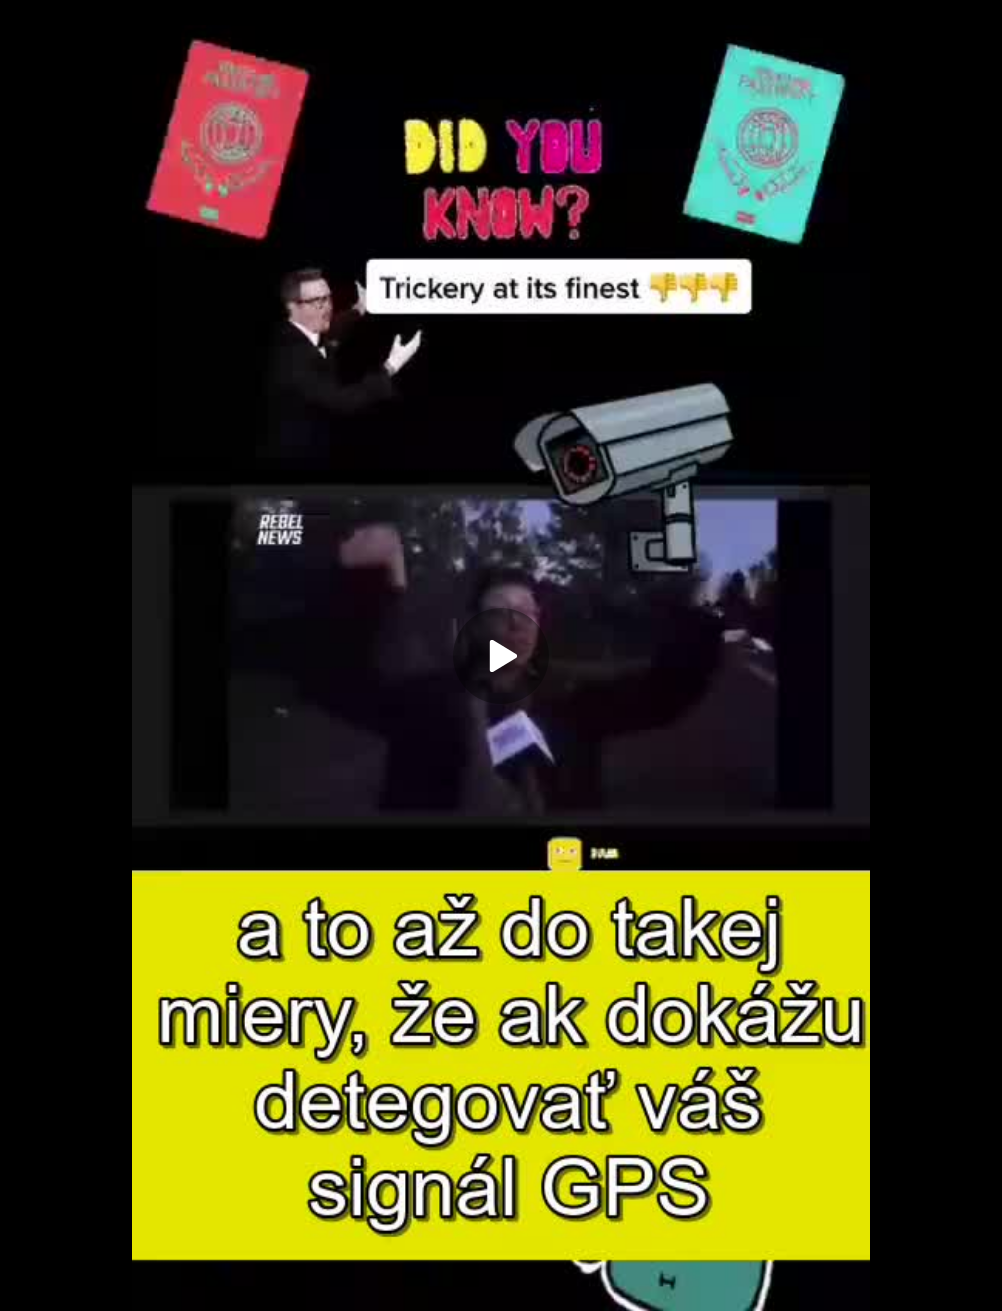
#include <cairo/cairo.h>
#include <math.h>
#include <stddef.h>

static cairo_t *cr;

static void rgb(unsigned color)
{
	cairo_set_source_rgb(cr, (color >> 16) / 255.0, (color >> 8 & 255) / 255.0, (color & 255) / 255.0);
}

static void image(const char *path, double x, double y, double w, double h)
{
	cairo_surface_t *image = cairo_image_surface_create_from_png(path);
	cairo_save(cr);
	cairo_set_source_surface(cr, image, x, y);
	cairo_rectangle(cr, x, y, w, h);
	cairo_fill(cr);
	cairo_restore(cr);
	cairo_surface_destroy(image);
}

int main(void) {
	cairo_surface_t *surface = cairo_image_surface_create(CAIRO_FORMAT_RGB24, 1002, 1311);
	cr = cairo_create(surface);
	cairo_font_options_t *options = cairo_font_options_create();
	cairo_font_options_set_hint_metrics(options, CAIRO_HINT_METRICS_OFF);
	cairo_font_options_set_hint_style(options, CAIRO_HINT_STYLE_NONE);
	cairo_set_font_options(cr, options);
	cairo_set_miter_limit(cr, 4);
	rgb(0x000000);
	cairo_paint(cr);
	image("img/1.png", 132, 25, 738, 1286);
	cairo_set_source_rgba(cr, 0, 0, 0, 0.4);
	cairo_arc(cr, 501, 656, 48, 0, 2 * M_PI);
	cairo_fill(cr);
	rgb(0xffffff);
	cairo_new_path(cr);
	cairo_move_to(cr, 515, 656);
	cairo_line_to(cr, 492, 642);
	cairo_line_to(cr, 492, 670);
	cairo_close_path(cr);
	cairo_fill(cr);
	cairo_save(cr);
	cairo_rectangle(cr, 485, 640, 32, 32);
	cairo_clip(cr);
	cairo_new_path(cr);
	cairo_move_to(cr, 515, 656);
	cairo_line_to(cr, 492, 642);
	cairo_line_to(cr, 492, 670);
	cairo_close_path(cr);
	cairo_set_line_width(cr, 4.4);
	cairo_set_line_join(cr, CAIRO_LINE_JOIN_ROUND);
	cairo_stroke(cr);
	cairo_restore(cr);
	cairo_surface_write_to_png(surface, "page.png");
	cairo_font_options_destroy(options);
	cairo_destroy(cr);
	cairo_surface_destroy(surface);
	return 0;
}
